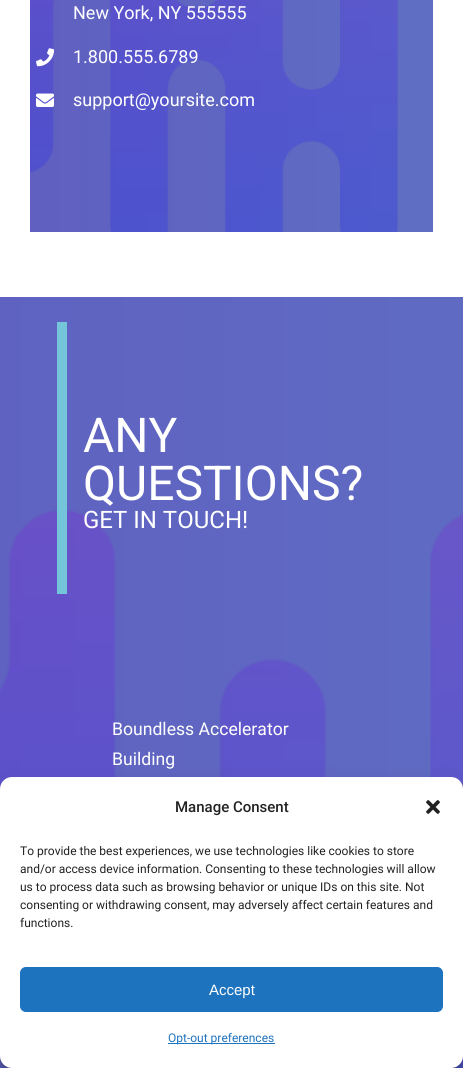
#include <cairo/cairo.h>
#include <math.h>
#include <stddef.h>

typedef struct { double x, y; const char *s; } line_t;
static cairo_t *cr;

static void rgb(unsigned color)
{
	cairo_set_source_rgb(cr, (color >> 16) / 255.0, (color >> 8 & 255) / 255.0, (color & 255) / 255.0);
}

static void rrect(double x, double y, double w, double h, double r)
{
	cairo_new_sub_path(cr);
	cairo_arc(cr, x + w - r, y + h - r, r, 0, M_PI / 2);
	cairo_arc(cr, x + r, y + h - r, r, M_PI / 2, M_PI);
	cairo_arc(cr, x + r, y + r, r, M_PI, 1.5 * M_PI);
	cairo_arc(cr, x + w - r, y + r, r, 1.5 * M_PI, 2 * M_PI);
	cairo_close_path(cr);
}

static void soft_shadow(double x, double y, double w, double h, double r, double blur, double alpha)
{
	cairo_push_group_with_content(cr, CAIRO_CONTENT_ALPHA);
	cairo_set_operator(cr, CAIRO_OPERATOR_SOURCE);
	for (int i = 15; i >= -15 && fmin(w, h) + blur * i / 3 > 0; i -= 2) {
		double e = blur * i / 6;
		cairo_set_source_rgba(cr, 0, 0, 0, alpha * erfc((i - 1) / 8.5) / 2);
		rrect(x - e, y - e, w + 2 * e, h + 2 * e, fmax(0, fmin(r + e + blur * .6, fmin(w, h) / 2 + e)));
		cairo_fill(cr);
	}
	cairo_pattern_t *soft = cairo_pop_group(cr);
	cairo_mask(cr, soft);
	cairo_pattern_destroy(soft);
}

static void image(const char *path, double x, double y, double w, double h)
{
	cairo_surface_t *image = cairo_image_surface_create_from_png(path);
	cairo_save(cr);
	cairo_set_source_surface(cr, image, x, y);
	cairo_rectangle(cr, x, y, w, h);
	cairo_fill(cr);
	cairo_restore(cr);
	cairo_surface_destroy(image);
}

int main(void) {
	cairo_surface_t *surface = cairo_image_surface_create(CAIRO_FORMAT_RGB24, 463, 1068);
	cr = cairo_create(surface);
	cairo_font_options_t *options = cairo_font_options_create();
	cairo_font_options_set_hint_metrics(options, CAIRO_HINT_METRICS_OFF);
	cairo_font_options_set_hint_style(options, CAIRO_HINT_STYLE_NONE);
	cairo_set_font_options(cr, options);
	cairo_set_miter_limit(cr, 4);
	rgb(0xffffff);
	cairo_paint(cr);
	image("img/1.png", 30, 0, 403, 232);
	image("img/2.png", 36, 48, 18, 19);
	image("img/3.png", 36, 93, 18, 14);
	image("img/4.png", 0, 297, 463, 771);
	rgb(0x74c5da);
	cairo_rectangle(cr, 57, 322, 10, 272);
	cairo_fill(cr);
	rgb(0x000000);
	soft_shadow(0, 783, 463, 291, 12, 3, 0.23);
	soft_shadow(0, 787, 463, 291, 12, 10, 0.19);
	rgb(0xffffff);
	rrect(0, 777, 463, 291, 12);
	cairo_fill(cr);
	image("img/5.png", 426, 800, 14, 14);
	rgb(0x1e73be);
	rrect(20.5, 967.5, 422, 44, 5.5);
	cairo_fill_preserve(cr);
	cairo_set_line_width(cr, 1);
	cairo_stroke(cr);
	cairo_rectangle(cr, 168, 1043, 107, 1);
	cairo_fill(cr);
	cairo_select_font_face(cr, "Roboto", CAIRO_FONT_SLANT_NORMAL, CAIRO_FONT_WEIGHT_NORMAL);
	cairo_set_font_size(cr, 18);
	rgb(0xffffff);
	{
		static const line_t items[] = {
			{73, 19, "New York, NY 555555"},
			{73, 63, "1.800.555.6789"},
			{73, 106, "support@yoursite.com"},
		};
		for (size_t i = 0; i < sizeof items / sizeof *items; i++) {
			cairo_move_to(cr, items[i].x, items[i].y);
			cairo_show_text(cr, items[i].s);
		}
	}
	cairo_set_font_size(cr, 48);
	cairo_move_to(cr, 83, 452);
	cairo_show_text(cr, "ANY");
	cairo_move_to(cr, 83, 500);
	cairo_show_text(cr, "QUESTIONS?");
	cairo_set_font_size(cr, 24);
	cairo_move_to(cr, 83, 528);
	cairo_show_text(cr, "GET IN TOUCH!");
	cairo_set_font_size(cr, 17.6);
	cairo_move_to(cr, 112, 735);
	cairo_show_text(cr, "Boundless Accelerator");
	cairo_move_to(cr, 112, 765);
	cairo_show_text(cr, "Building");
	cairo_select_font_face(cr, "Roboto Medium", CAIRO_FONT_SLANT_NORMAL, CAIRO_FONT_WEIGHT_NORMAL);
	cairo_set_font_size(cr, 15);
	rgb(0x222222);
	cairo_move_to(cr, 175, 812);
	cairo_show_text(cr, "Manage Consent");
	cairo_select_font_face(cr, "Roboto", CAIRO_FONT_SLANT_NORMAL, CAIRO_FONT_WEIGHT_NORMAL);
	cairo_set_font_size(cr, 12);
	{
		static const line_t items[] = {
			{20, 855, "To provide the best experiences, we use technologies like cookies to store"},
			{20, 873, "and/or access device information. Consenting to these technologies will allow"},
			{20, 891, "us to process data such as browsing behavior or unique IDs on this site. Not"},
			{20, 909, "consenting or withdrawing consent, may adversely affect certain features and"},
			{20, 927, "functions."},
		};
		for (size_t i = 0; i < sizeof items / sizeof *items; i++) {
			cairo_move_to(cr, items[i].x, items[i].y);
			cairo_show_text(cr, items[i].s);
		}
	}
	cairo_select_font_face(cr, "Liberation Sans", CAIRO_FONT_SLANT_NORMAL, CAIRO_FONT_WEIGHT_NORMAL);
	cairo_set_font_size(cr, 15);
	rgb(0xffffff);
	cairo_move_to(cr, 209, 995);
	cairo_show_text(cr, "Accept");
	cairo_select_font_face(cr, "Roboto", CAIRO_FONT_SLANT_NORMAL, CAIRO_FONT_WEIGHT_NORMAL);
	cairo_set_font_size(cr, 12);
	rgb(0x1e73be);
	cairo_move_to(cr, 168, 1042);
	cairo_show_text(cr, "Opt-out preferences");
	cairo_surface_write_to_png(surface, "page.png");
	cairo_font_options_destroy(options);
	cairo_destroy(cr);
	cairo_surface_destroy(surface);
	return 0;
}
